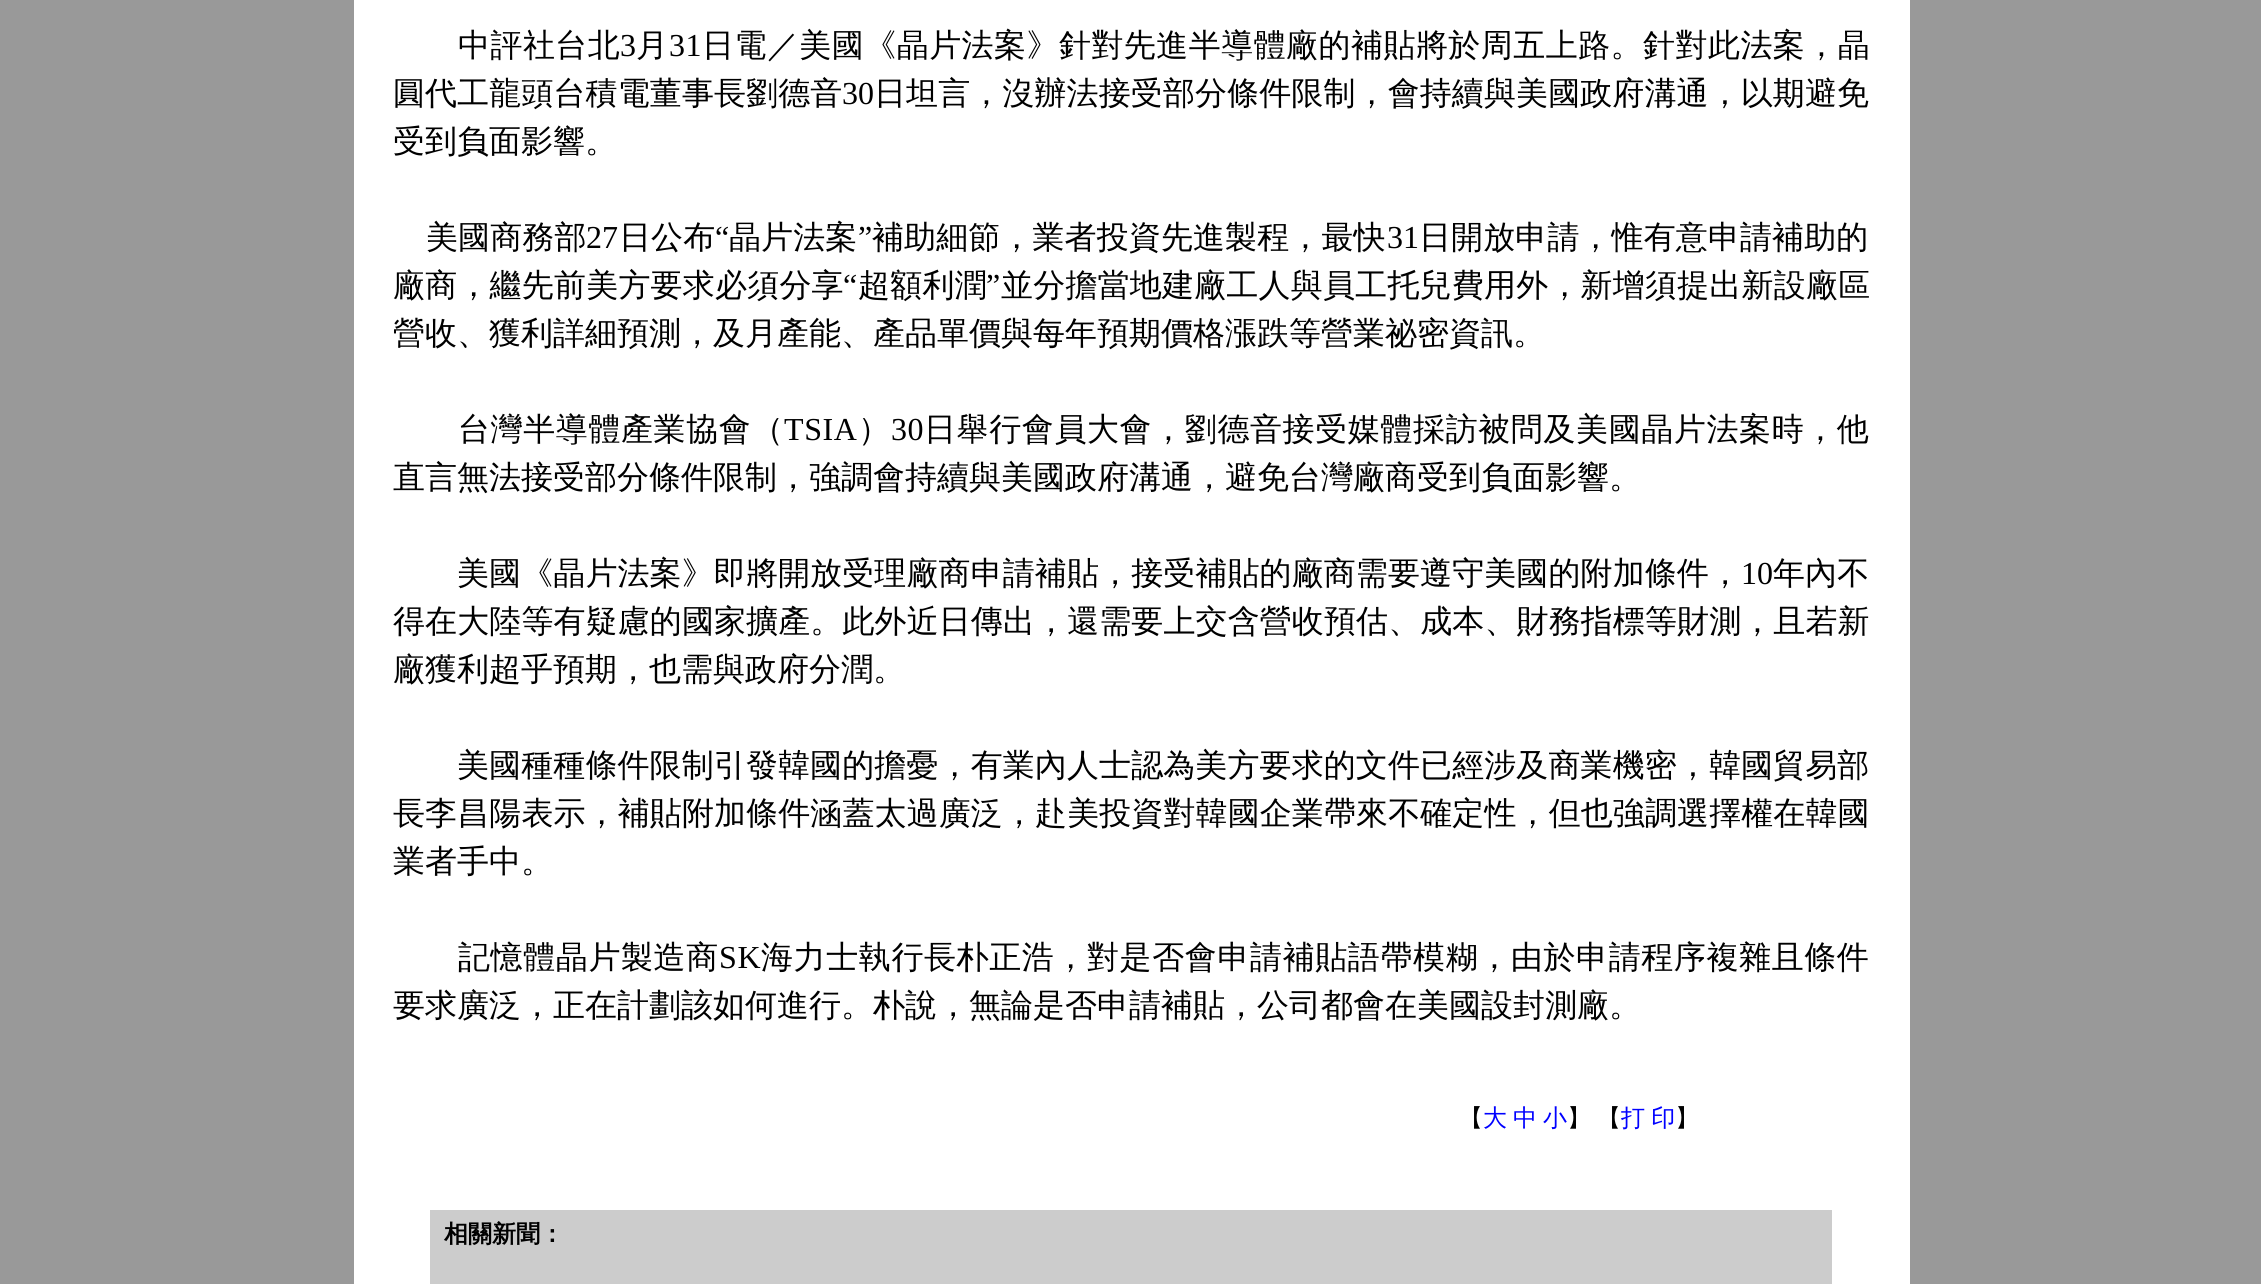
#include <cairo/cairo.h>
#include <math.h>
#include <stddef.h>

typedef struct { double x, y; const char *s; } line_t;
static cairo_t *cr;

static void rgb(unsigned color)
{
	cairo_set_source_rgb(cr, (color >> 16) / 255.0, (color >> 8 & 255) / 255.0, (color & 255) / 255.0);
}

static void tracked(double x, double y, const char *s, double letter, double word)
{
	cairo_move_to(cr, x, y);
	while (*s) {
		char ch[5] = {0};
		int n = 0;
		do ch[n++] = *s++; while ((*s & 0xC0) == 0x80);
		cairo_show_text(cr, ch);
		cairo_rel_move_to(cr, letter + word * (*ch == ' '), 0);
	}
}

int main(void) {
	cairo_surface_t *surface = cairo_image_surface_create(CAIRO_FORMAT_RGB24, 2261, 1284);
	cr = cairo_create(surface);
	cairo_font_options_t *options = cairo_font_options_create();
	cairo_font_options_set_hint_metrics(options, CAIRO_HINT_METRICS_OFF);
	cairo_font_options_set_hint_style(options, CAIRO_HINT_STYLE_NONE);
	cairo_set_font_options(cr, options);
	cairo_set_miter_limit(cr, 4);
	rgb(0x999999);
	cairo_paint(cr);
	rgb(0xffffff);
	cairo_rectangle(cr, 354, 0, 1556, 1284);
	cairo_fill(cr);
	rgb(0xcccccc);
	cairo_rectangle(cr, 430, 1210, 1402, 74);
	cairo_fill(cr);
	cairo_select_font_face(cr, "WenQuanYi Zen Hei Medium", CAIRO_FONT_SLANT_NORMAL, CAIRO_FONT_WEIGHT_NORMAL);
	cairo_set_font_size(cr, 32);
	rgb(0x000000);
	tracked(458, 56, "中評社台北", 0.45, 0);
	cairo_select_font_face(cr, "Liberation Serif", CAIRO_FONT_SLANT_NORMAL, CAIRO_FONT_WEIGHT_NORMAL);
	tracked(620, 56, "3", 0.45, 0);
	cairo_select_font_face(cr, "WenQuanYi Zen Hei Medium", CAIRO_FONT_SLANT_NORMAL, CAIRO_FONT_WEIGHT_NORMAL);
	tracked(636, 56, "月", 0.45, 0);
	cairo_select_font_face(cr, "Liberation Serif", CAIRO_FONT_SLANT_NORMAL, CAIRO_FONT_WEIGHT_NORMAL);
	tracked(669, 56, "31", 0.45, 0);
	cairo_select_font_face(cr, "WenQuanYi Zen Hei Medium", CAIRO_FONT_SLANT_NORMAL, CAIRO_FONT_WEIGHT_NORMAL);
	tracked(702, 56, "日電／美國《晶片法案》針對先進半導體廠的補貼將於周五上路。針對此法案，晶", 0.45, 0);
	tracked(393, 104, "圓代工龍頭台積電董事長劉德音", 0.1, 0);
	cairo_select_font_face(cr, "Liberation Serif", CAIRO_FONT_SLANT_NORMAL, CAIRO_FONT_WEIGHT_NORMAL);
	tracked(842, 104, "30", 0.1, 0);
	cairo_select_font_face(cr, "WenQuanYi Zen Hei Medium", CAIRO_FONT_SLANT_NORMAL, CAIRO_FONT_WEIGHT_NORMAL);
	tracked(874, 104, "日坦言，沒辦法接受部分條件限制，會持續與美國政府溝通，以期避免", 0.1, 0);
	cairo_move_to(cr, 393, 152);
	cairo_show_text(cr, "受到負面影響。");
	tracked(426, 248, "美國商務部", 0.1, 0);
	cairo_select_font_face(cr, "Liberation Serif", CAIRO_FONT_SLANT_NORMAL, CAIRO_FONT_WEIGHT_NORMAL);
	tracked(586, 248, "27", 0.1, 0);
	cairo_select_font_face(cr, "WenQuanYi Zen Hei Medium", CAIRO_FONT_SLANT_NORMAL, CAIRO_FONT_WEIGHT_NORMAL);
	tracked(619, 248, "日公布", 0.1, 0);
	cairo_select_font_face(cr, "Liberation Serif", CAIRO_FONT_SLANT_NORMAL, CAIRO_FONT_WEIGHT_NORMAL);
	tracked(715, 248, "“", 0.1, 0);
	cairo_select_font_face(cr, "WenQuanYi Zen Hei Medium", CAIRO_FONT_SLANT_NORMAL, CAIRO_FONT_WEIGHT_NORMAL);
	tracked(729, 248, "晶片法案", 0.1, 0);
	cairo_select_font_face(cr, "Liberation Serif", CAIRO_FONT_SLANT_NORMAL, CAIRO_FONT_WEIGHT_NORMAL);
	tracked(858, 248, "”", 0.1, 0);
	cairo_select_font_face(cr, "WenQuanYi Zen Hei Medium", CAIRO_FONT_SLANT_NORMAL, CAIRO_FONT_WEIGHT_NORMAL);
	tracked(872, 248, "補助細節，業者投資先進製程，最快", 0.1, 0);
	cairo_select_font_face(cr, "Liberation Serif", CAIRO_FONT_SLANT_NORMAL, CAIRO_FONT_WEIGHT_NORMAL);
	tracked(1387, 248, "31", 0.1, 0);
	cairo_select_font_face(cr, "WenQuanYi Zen Hei Medium", CAIRO_FONT_SLANT_NORMAL, CAIRO_FONT_WEIGHT_NORMAL);
	tracked(1419, 248, "日開放申請，惟有意申請補助的", 0.1, 0);
	tracked(393, 296, "廠商，繼先前美方要求必須分享", 0.2, 0);
	cairo_select_font_face(cr, "Liberation Serif", CAIRO_FONT_SLANT_NORMAL, CAIRO_FONT_WEIGHT_NORMAL);
	tracked(843, 296, "“", 0.2, 0);
	cairo_select_font_face(cr, "WenQuanYi Zen Hei Medium", CAIRO_FONT_SLANT_NORMAL, CAIRO_FONT_WEIGHT_NORMAL);
	tracked(858, 296, "超額利潤", 0.2, 0);
	cairo_select_font_face(cr, "Liberation Serif", CAIRO_FONT_SLANT_NORMAL, CAIRO_FONT_WEIGHT_NORMAL);
	tracked(986, 296, "”", 0.2, 0);
	cairo_select_font_face(cr, "WenQuanYi Zen Hei Medium", CAIRO_FONT_SLANT_NORMAL, CAIRO_FONT_WEIGHT_NORMAL);
	tracked(1001, 296, "並分擔當地建廠工人與員工托兒費用外，新增須提出新設廠區", 0.2, 0);
	cairo_move_to(cr, 393, 344);
	cairo_show_text(cr, "營收、獲利詳細預測，及月產能、產品單價與每年預期價格漲跌等營業祕密資訊。");
	tracked(458, 440, "台灣半導體產業協會（", 0.6, 0);
	cairo_select_font_face(cr, "Liberation Serif", CAIRO_FONT_SLANT_NORMAL, CAIRO_FONT_WEIGHT_NORMAL);
	tracked(784, 440, "TSIA", 0.6, 0);
	cairo_select_font_face(cr, "WenQuanYi Zen Hei Medium", CAIRO_FONT_SLANT_NORMAL, CAIRO_FONT_WEIGHT_NORMAL);
	tracked(858, 440, "）", 0.6, 0);
	cairo_select_font_face(cr, "Liberation Serif", CAIRO_FONT_SLANT_NORMAL, CAIRO_FONT_WEIGHT_NORMAL);
	tracked(891, 440, "30", 0.6, 0);
	cairo_select_font_face(cr, "WenQuanYi Zen Hei Medium", CAIRO_FONT_SLANT_NORMAL, CAIRO_FONT_WEIGHT_NORMAL);
	tracked(924, 440, "日舉行會員大會，劉德音接受媒體採訪被問及美國晶片法案時，他", 0.6, 0);
	cairo_move_to(cr, 393, 488);
	cairo_show_text(cr, "直言無法接受部分條件限制，強調會持續與美國政府溝通，避免台灣廠商受到負面影響。");
	tracked(457, 584, "美國《晶片法案》即將開放受理廠商申請補貼，接受補貼的廠商需要遵守美國的附加條件，", 0.1, 0);
	cairo_select_font_face(cr, "Liberation Serif", CAIRO_FONT_SLANT_NORMAL, CAIRO_FONT_WEIGHT_NORMAL);
	tracked(1741, 584, "10", 0.1, 0);
	cairo_select_font_face(cr, "WenQuanYi Zen Hei Medium", CAIRO_FONT_SLANT_NORMAL, CAIRO_FONT_WEIGHT_NORMAL);
	tracked(1773, 584, "年內不", 0.1, 0);
	tracked(393, 632, "得在大陸等有疑慮的國家擴產。此外近日傳出，還需要上交含營收預估、成本、財務指標等財測，且若新", 0.1, 0);
	cairo_move_to(cr, 393, 680);
	cairo_show_text(cr, "廠獲利超乎預期，也需與政府分潤。");
	tracked(457, 776, "美國種種條件限制引發韓國的擔憂，有業內人士認為美方要求的文件已經涉及商業機密，韓國貿易部", 0.1, 0);
	tracked(393, 824, "長李昌陽表示，補貼附加條件涵蓋太過廣泛，赴美投資對韓國企業帶來不確定性，但也強調選擇權在韓國", 0.1, 0);
	cairo_move_to(cr, 393, 872);
	cairo_show_text(cr, "業者手中。");
	tracked(458, 968, "記憶體晶片製造商", 0.6, 0);
	cairo_select_font_face(cr, "Liberation Serif", CAIRO_FONT_SLANT_NORMAL, CAIRO_FONT_WEIGHT_NORMAL);
	tracked(719, 968, "SK", 0.6, 0);
	cairo_select_font_face(cr, "WenQuanYi Zen Hei Medium", CAIRO_FONT_SLANT_NORMAL, CAIRO_FONT_WEIGHT_NORMAL);
	tracked(761, 968, "海力士執行長朴正浩，對是否會申請補貼語帶模糊，由於申請程序複雜且條件", 0.6, 0);
	cairo_move_to(cr, 393, 1016);
	cairo_show_text(cr, "要求廣泛，正在計劃該如何進行。朴說，無論是否申請補貼，公司都會在美國設封測廠。");
	cairo_set_font_size(cr, 24);
	cairo_move_to(cr, 1459, 1126);
	cairo_show_text(cr, "【");
	rgb(0x0000ff);
	{
		static const line_t items[] = {
			{1483, 1126, "大"},
			{1513, 1126, "中"},
			{1543, 1126, "小"},
		};
		for (size_t i = 0; i < sizeof items / sizeof *items; i++) {
			cairo_move_to(cr, items[i].x, items[i].y);
			cairo_show_text(cr, items[i].s);
		}
	}
	rgb(0x000000);
	cairo_move_to(cr, 1567, 1126);
	cairo_show_text(cr, "】");
	cairo_move_to(cr, 1597, 1126);
	cairo_show_text(cr, "【");
	rgb(0x0000ff);
	tracked(1621, 1126, "打 印", 0, -1);
	rgb(0x000000);
	cairo_move_to(cr, 1675, 1126);
	cairo_show_text(cr, "】");
	cairo_select_font_face(cr, "WenQuanYi Zen Hei", CAIRO_FONT_SLANT_NORMAL, CAIRO_FONT_WEIGHT_BOLD);
	cairo_move_to(cr, 444, 1242);
	cairo_show_text(cr, "相關新聞：");
	cairo_surface_write_to_png(surface, "page.png");
	cairo_font_options_destroy(options);
	cairo_destroy(cr);
	cairo_surface_destroy(surface);
	return 0;
}
